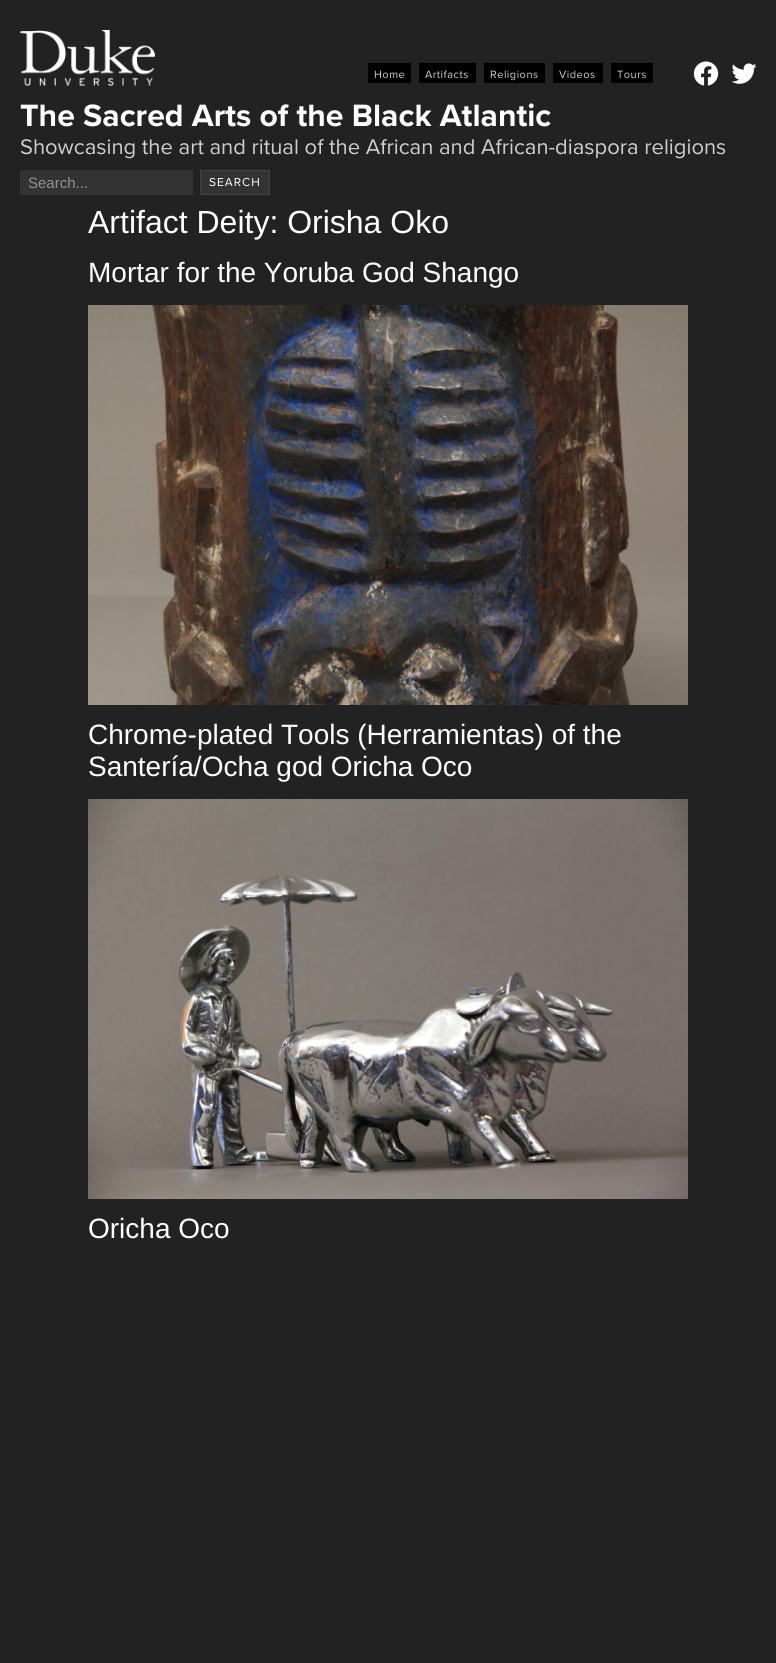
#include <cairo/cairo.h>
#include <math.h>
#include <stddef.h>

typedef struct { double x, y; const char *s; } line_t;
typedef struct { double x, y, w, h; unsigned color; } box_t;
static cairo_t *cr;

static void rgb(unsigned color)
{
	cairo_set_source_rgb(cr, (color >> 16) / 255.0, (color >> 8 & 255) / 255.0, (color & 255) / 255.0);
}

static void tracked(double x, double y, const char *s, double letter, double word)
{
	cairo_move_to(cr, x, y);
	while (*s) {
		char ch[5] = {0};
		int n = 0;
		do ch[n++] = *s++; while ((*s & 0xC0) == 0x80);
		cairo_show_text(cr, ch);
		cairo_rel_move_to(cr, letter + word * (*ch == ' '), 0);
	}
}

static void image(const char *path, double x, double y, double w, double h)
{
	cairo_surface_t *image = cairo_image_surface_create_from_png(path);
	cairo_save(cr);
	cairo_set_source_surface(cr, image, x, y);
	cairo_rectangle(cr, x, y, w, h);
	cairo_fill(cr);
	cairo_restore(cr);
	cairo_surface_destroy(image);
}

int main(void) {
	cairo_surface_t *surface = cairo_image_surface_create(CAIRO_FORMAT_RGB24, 776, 1663);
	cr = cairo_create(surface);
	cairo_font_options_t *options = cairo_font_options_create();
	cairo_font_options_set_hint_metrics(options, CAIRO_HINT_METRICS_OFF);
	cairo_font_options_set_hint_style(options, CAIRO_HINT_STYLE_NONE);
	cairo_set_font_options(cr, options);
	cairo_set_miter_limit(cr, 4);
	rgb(0x222222);
	cairo_paint(cr);
	image("img/1.png", 20, 30, 135, 56);
	{
		static const box_t items[] = {
			{368, 63, 43, 20, 0x000000},
			{419, 63, 57, 20, 0x000000},
			{484, 63, 61, 20, 0x000000},
			{553, 63, 50, 20, 0x000000},
			{611, 63, 42, 20, 0x000000},
		};
		for (size_t i = 0; i < sizeof items / sizeof *items; i++) {
			rgb(items[i].color);
			cairo_rectangle(cr, items[i].x, items[i].y, items[i].w, items[i].h);
			cairo_fill(cr);
		}
	}
	image("img/2.png", 693, 61, 26, 25);
	image("img/3.png", 731, 63, 26, 21);
	rgb(0x333333);
	cairo_rectangle(cr, 20, 170, 249, 25);
	cairo_fill(cr);
	rgb(0x222222);
	cairo_rectangle(cr, 193, 170, 7, 25);
	cairo_fill(cr);
	cairo_rectangle(cr, 200.5, 170.5, 69, 24);
	rgb(0x444444);
	cairo_set_line_width(cr, 1);
	cairo_stroke(cr);
	image("img/4.png", 88, 305, 600, 400);
	image("img/5.png", 88, 799, 600, 400);
	cairo_select_font_face(cr, "Proxima Nova", CAIRO_FONT_SLANT_NORMAL, CAIRO_FONT_WEIGHT_NORMAL);
	cairo_set_font_size(cr, 11);
	rgb(0xcfcfcf);
	{
		static const line_t items[] = {
			{374, 78, "Home"},
			{425, 78, "Artifacts"},
			{490, 78, "Religions"},
			{559, 78, "Videos"},
			{617, 78, "Tours"},
		};
		for (size_t i = 0; i < sizeof items / sizeof *items; i++) {
			tracked(items[i].x, items[i].y, items[i].s, 0.5, 0);
		}
	}
	cairo_select_font_face(cr, "Proxima Nova", CAIRO_FONT_SLANT_NORMAL, CAIRO_FONT_WEIGHT_BOLD);
	cairo_set_font_size(cr, 32);
	rgb(0xffffff);
	cairo_move_to(cr, 20, 126);
	cairo_show_text(cr, "The Sacred Arts of the Black Atlantic");
	cairo_select_font_face(cr, "Proxima Nova", CAIRO_FONT_SLANT_NORMAL, CAIRO_FONT_WEIGHT_NORMAL);
	cairo_set_font_size(cr, 22);
	rgb(0xcfcfcf);
	cairo_move_to(cr, 20, 154);
	cairo_show_text(cr, "Showcasing the art and ritual of the African and African-diaspora religions");
	cairo_select_font_face(cr, "Liberation Sans", CAIRO_FONT_SLANT_NORMAL, CAIRO_FONT_WEIGHT_NORMAL);
	cairo_set_font_size(cr, 15);
	rgb(0x919191);
	cairo_move_to(cr, 28, 188);
	cairo_show_text(cr, "Search...");
	cairo_select_font_face(cr, "Proxima Nova", CAIRO_FONT_SLANT_NORMAL, CAIRO_FONT_WEIGHT_NORMAL);
	cairo_set_font_size(cr, 12);
	rgb(0xffffff);
	tracked(209, 186, "SEARCH", 1, 0);
	cairo_select_font_face(cr, "Liberation Sans", CAIRO_FONT_SLANT_NORMAL, CAIRO_FONT_WEIGHT_NORMAL);
	cairo_set_font_size(cr, 32);
	cairo_move_to(cr, 88, 233);
	cairo_show_text(cr, "Artifact Deity: Orisha Oko");
	cairo_set_font_size(cr, 28);
	{
		static const line_t items[] = {
			{88, 282, "Mortar for the Yoruba God Shango"},
			{88, 744, "Chrome-plated Tools (Herramientas) of the"},
			{88, 776, "Santería/Ocha god Oricha Oco"},
			{88, 1238, "Oricha Oco"},
		};
		for (size_t i = 0; i < sizeof items / sizeof *items; i++) {
			cairo_move_to(cr, items[i].x, items[i].y);
			cairo_show_text(cr, items[i].s);
		}
	}
	cairo_surface_write_to_png(surface, "page.png");
	cairo_font_options_destroy(options);
	cairo_destroy(cr);
	cairo_surface_destroy(surface);
	return 0;
}
